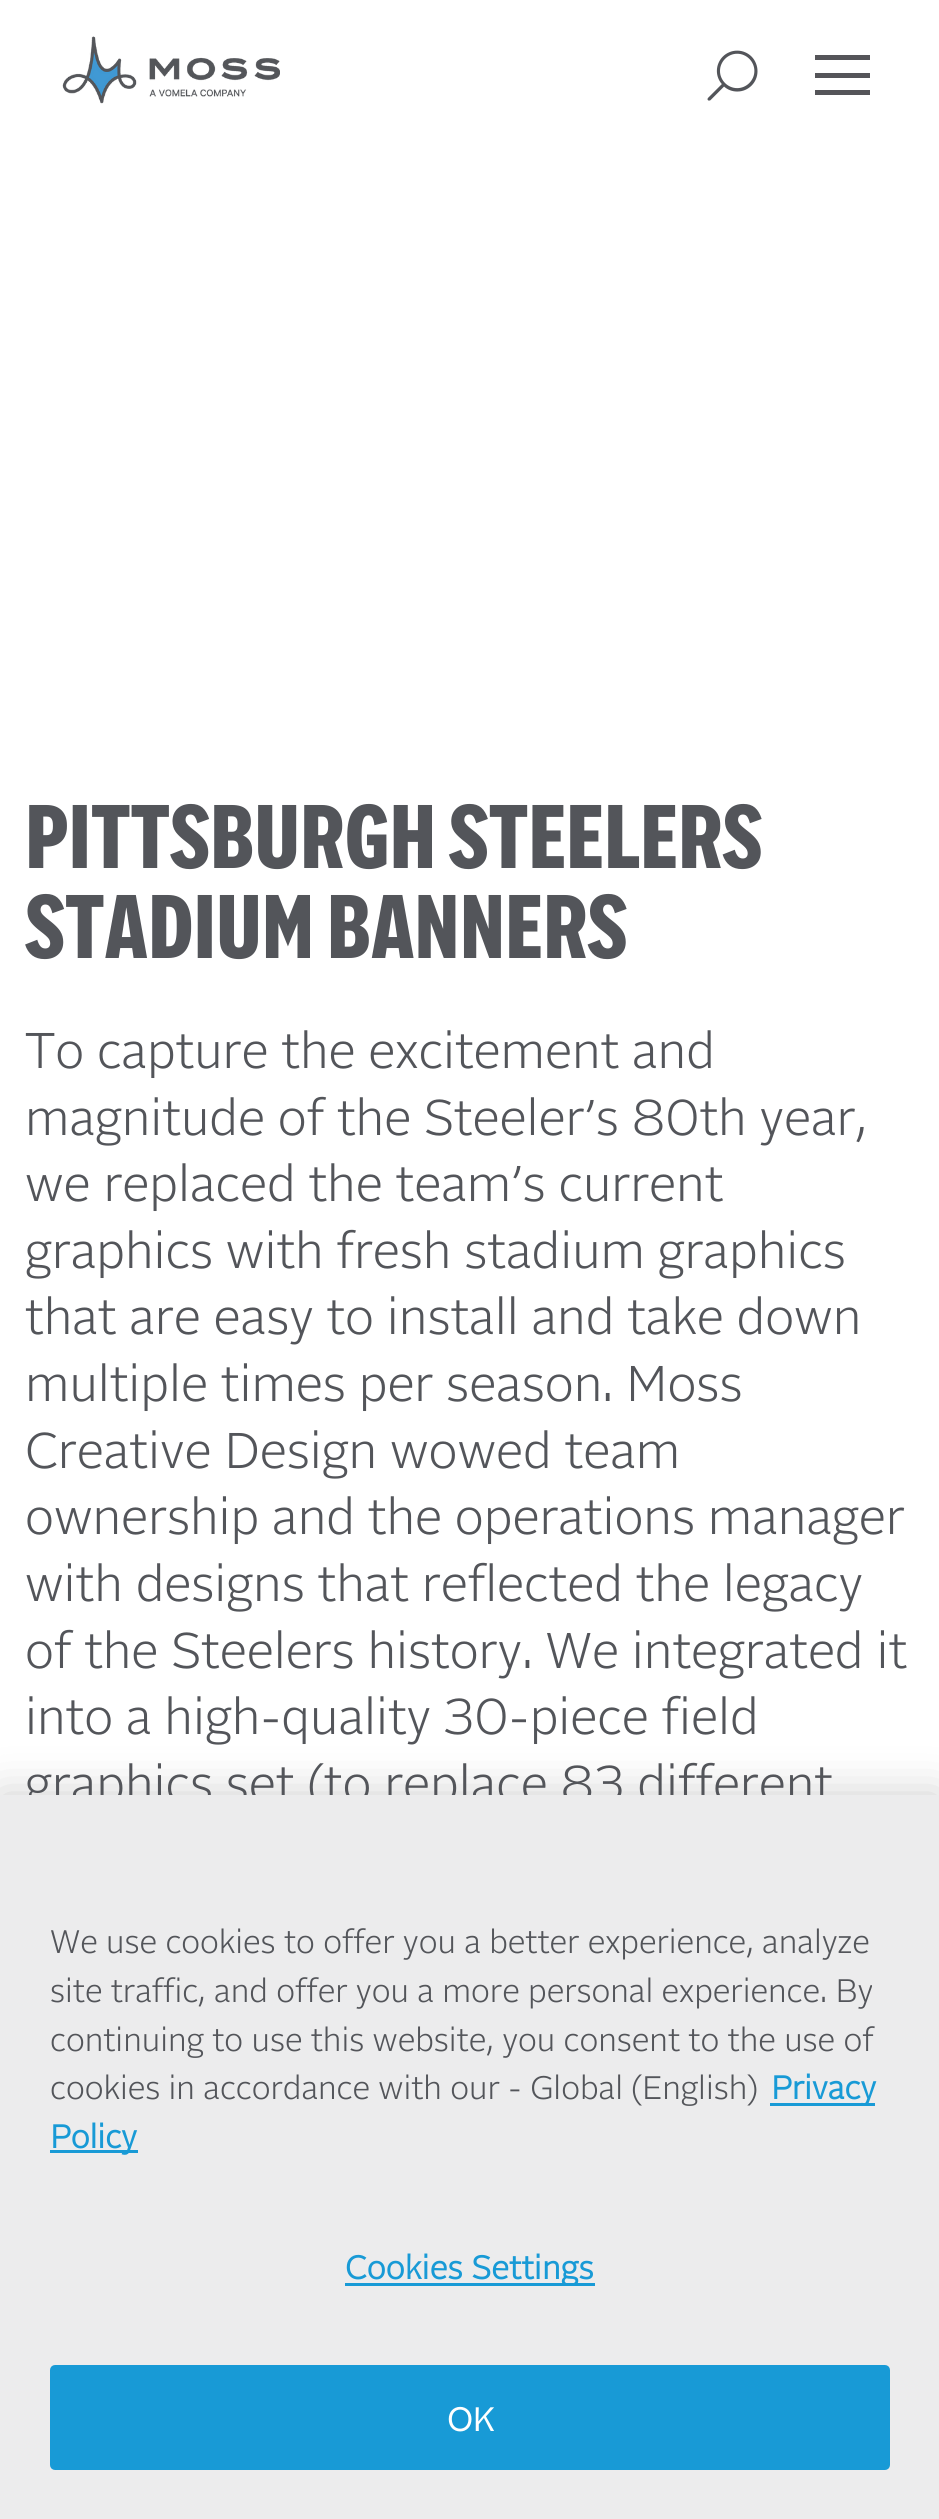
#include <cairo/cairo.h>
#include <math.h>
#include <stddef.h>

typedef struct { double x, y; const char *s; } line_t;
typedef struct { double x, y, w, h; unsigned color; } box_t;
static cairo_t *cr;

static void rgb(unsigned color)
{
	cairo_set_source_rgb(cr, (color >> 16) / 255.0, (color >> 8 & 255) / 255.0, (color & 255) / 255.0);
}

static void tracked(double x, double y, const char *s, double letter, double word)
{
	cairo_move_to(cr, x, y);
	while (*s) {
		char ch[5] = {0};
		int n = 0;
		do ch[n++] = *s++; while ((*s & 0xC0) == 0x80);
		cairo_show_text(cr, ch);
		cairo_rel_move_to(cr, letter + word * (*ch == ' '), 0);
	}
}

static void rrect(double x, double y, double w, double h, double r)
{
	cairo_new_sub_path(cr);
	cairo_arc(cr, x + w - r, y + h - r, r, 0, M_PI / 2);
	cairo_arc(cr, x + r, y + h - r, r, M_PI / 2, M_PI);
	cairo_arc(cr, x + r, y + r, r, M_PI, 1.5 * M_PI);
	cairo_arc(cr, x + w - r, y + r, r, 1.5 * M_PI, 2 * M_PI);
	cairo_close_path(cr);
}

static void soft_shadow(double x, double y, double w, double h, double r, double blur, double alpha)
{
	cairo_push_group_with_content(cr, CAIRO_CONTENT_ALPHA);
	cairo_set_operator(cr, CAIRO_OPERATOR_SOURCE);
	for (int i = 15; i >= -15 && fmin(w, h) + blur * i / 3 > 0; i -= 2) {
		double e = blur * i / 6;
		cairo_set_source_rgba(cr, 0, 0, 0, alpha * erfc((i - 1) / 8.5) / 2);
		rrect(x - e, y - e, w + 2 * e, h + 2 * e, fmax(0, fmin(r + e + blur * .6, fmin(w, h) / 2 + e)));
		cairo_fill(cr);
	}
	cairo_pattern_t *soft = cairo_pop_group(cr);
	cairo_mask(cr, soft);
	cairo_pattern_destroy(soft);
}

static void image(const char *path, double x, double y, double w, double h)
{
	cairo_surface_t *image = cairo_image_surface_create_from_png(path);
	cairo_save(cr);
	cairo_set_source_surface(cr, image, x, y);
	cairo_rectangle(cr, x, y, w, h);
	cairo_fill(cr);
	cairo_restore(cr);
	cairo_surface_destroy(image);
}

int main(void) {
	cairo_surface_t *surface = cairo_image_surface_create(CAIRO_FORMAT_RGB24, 939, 2519);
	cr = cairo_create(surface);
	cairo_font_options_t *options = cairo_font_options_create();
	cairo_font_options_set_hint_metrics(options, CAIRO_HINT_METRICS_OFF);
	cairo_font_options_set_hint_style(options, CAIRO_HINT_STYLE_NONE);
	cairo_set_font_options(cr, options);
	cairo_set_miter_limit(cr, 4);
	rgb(0xffffff);
	cairo_paint(cr);
	image("img/1.png", 62, 36, 218, 68);
	image("img/2.png", 707, 50, 51, 51);
	{
		static const box_t items[] = {
			{815, 55, 55, 5, 0x555559},
			{815, 73, 55, 5, 0x555559},
			{815, 90, 55, 5, 0x555559},
		};
		for (size_t i = 0; i < sizeof items / sizeof *items; i++) {
			rgb(items[i].color);
			cairo_rectangle(cr, items[i].x, items[i].y, items[i].w, items[i].h);
			cairo_fill(cr);
		}
	}
	rgb(0x000000);
	soft_shadow(0, 1795, 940, 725, 0, 22.5, 0.2);
	cairo_select_font_face(cr, "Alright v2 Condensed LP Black", CAIRO_FONT_SLANT_NORMAL, CAIRO_FONT_WEIGHT_NORMAL);
	cairo_set_font_size(cr, 90);
	rgb(0x53555a);
	cairo_move_to(cr, 25, 868);
	cairo_show_text(cr, "PITTSBURGH STEELERS");
	cairo_move_to(cr, 25, 958);
	cairo_show_text(cr, "STADIUM BANNERS");
	cairo_select_font_face(cr, "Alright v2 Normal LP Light", CAIRO_FONT_SLANT_NORMAL, CAIRO_FONT_WEIGHT_NORMAL);
	cairo_set_font_size(cr, 50);
	{
		static const line_t items[] = {
			{25, 1068, "To capture the excitement and"},
			{25, 1135, "magnitude of the Steeler’s 80th year,"},
			{25, 1201, "we replaced the team’s current"},
			{25, 1268, "graphics with fresh stadium graphics"},
			{25, 1334, "that are easy to install and take down"},
			{25, 1401, "multiple times per season. Moss"},
			{25, 1468, "Creative Design wowed team"},
			{25, 1534, "ownership and the operations manager"},
			{25, 1601, "with designs that reflected the legacy"},
			{25, 1668, "of the Steelers history. We integrated it"},
			{25, 1734, "into a high-quality 30-piece field"},
			{25, 1801, "graphics set (to replace 83 different"},
		};
		for (size_t i = 0; i < sizeof items / sizeof *items; i++) {
			cairo_move_to(cr, items[i].x, items[i].y);
			cairo_show_text(cr, items[i].s);
		}
	}
	rgb(0xececed);
	cairo_rectangle(cr, 0, 1795, 939, 724);
	cairo_fill(cr);
	cairo_set_font_size(cr, 32.5);
	rgb(0x53555a);
	{
		static const line_t items[] = {
			{50, 1953, "We use cookies to offer you a better experience, analyze"},
			{50, 2002, "site traffic, and offer you a more personal experience. By"},
			{50, 2051, "continuing to use this website, you consent to the use of"},
			{50, 2099, "cookies in accordance with our - Global (English)"},
		};
		for (size_t i = 0; i < sizeof items / sizeof *items; i++) {
			cairo_move_to(cr, items[i].x, items[i].y);
			cairo_show_text(cr, items[i].s);
		}
	}
	rgb(0x189ad6);
	cairo_rectangle(cr, 770, 2103, 105, 3);
	cairo_fill(cr);
	cairo_select_font_face(cr, "Alright v2 Normal LP", CAIRO_FONT_SLANT_NORMAL, CAIRO_FONT_WEIGHT_BOLD);
	cairo_move_to(cr, 771, 2099);
	cairo_show_text(cr, "Privacy");
	cairo_rectangle(cr, 50, 2150, 88, 3);
	cairo_fill(cr);
	cairo_move_to(cr, 50, 2148);
	cairo_show_text(cr, "Policy");
	cairo_rectangle(cr, 345, 2283, 250, 3);
	cairo_fill(cr);
	tracked(345, 2279, "Cookies Settings", 0.3, 0);
	rrect(51.5, 2366.5, 837, 102, 3.5);
	cairo_fill_preserve(cr);
	cairo_set_line_width(cr, 3);
	cairo_stroke(cr);
	rgb(0xffffff);
	tracked(447, 2431, "OK", 0.3, 0);
	cairo_surface_write_to_png(surface, "page.png");
	cairo_font_options_destroy(options);
	cairo_destroy(cr);
	cairo_surface_destroy(surface);
	return 0;
}
